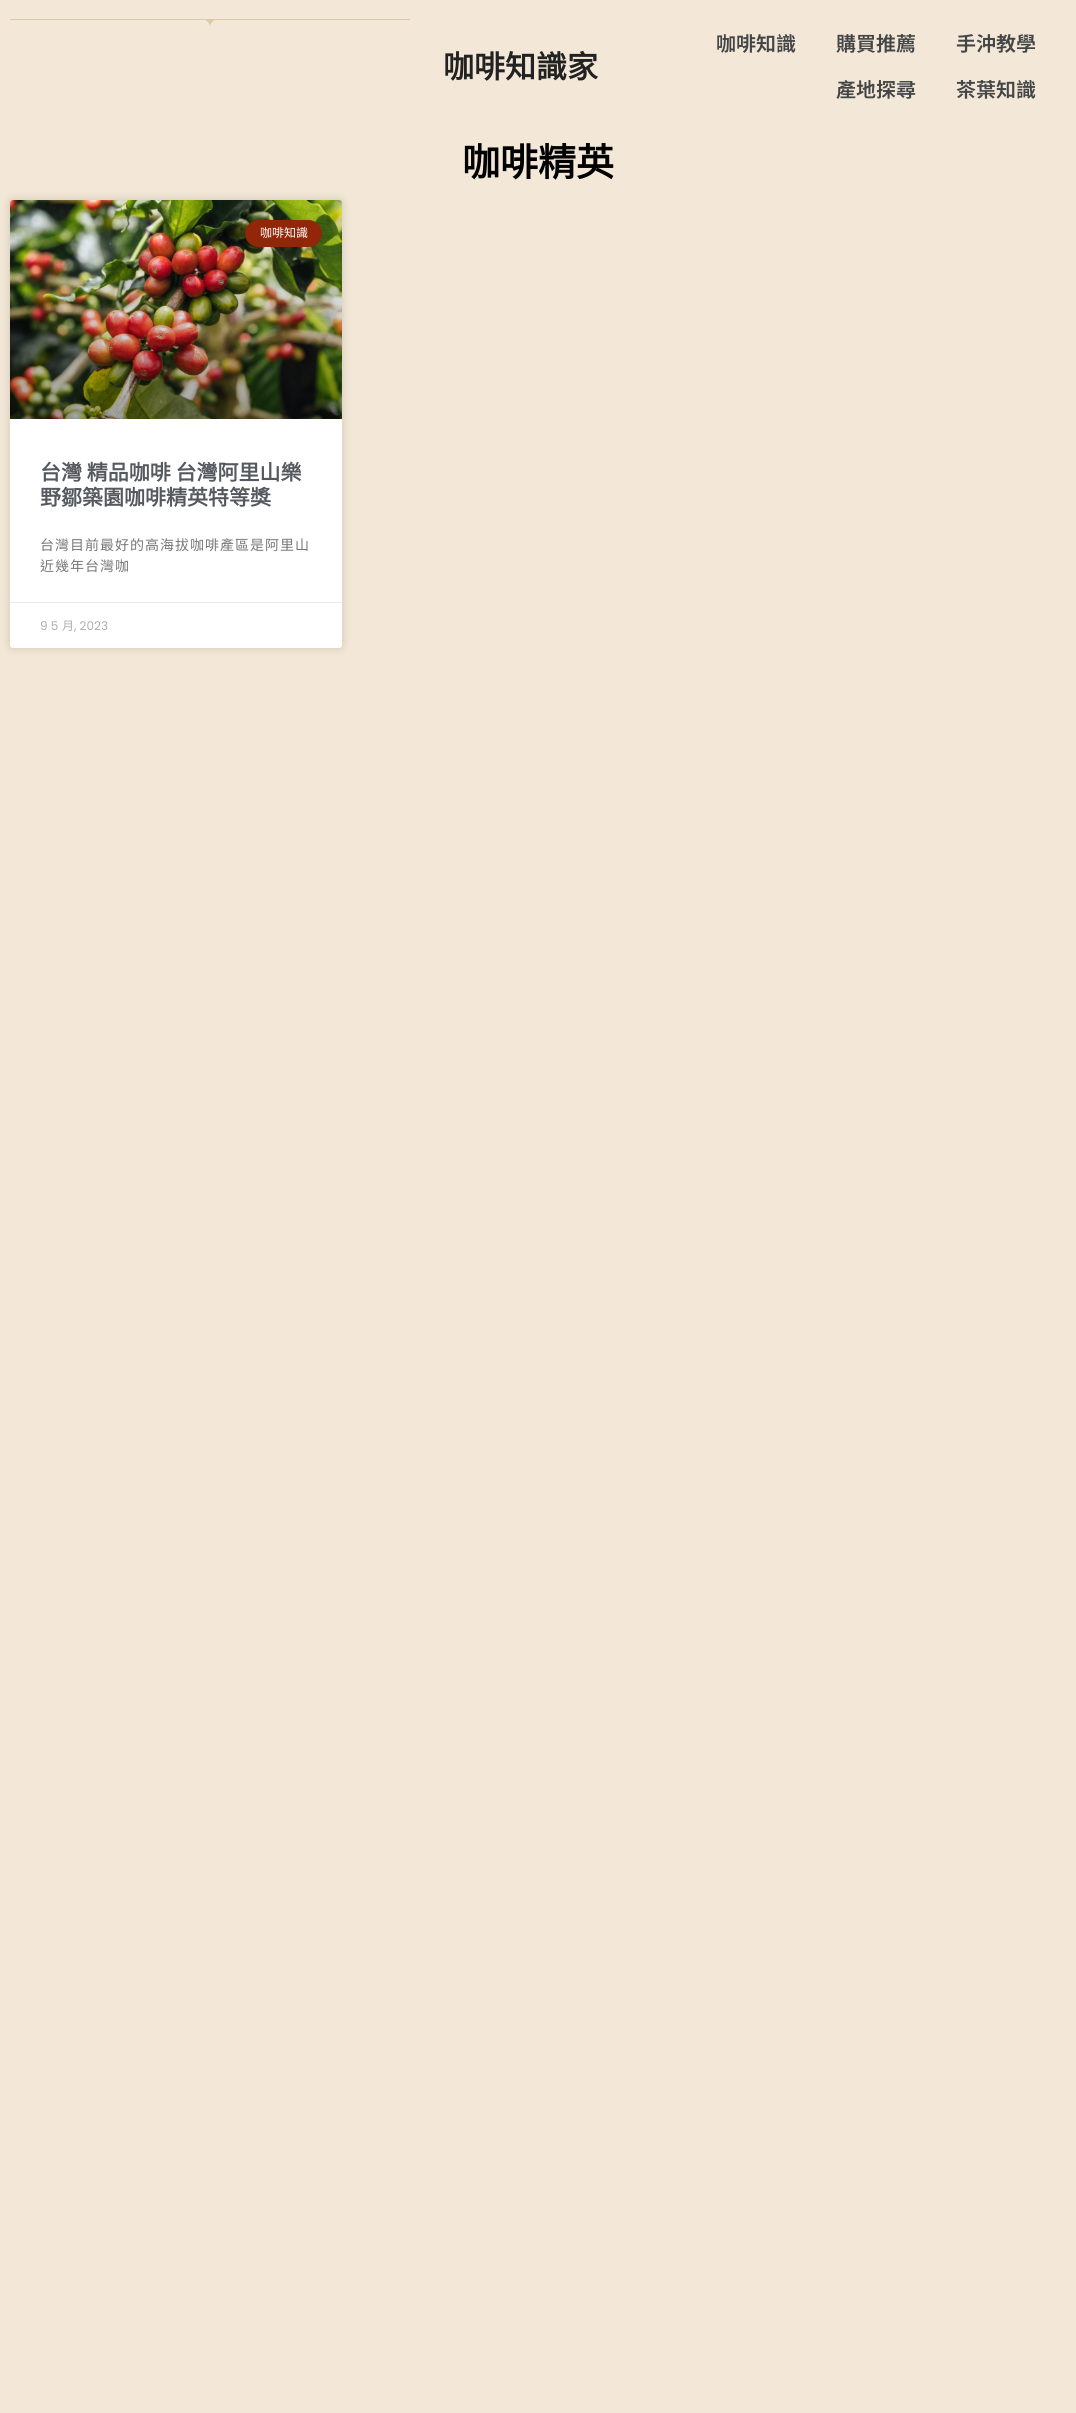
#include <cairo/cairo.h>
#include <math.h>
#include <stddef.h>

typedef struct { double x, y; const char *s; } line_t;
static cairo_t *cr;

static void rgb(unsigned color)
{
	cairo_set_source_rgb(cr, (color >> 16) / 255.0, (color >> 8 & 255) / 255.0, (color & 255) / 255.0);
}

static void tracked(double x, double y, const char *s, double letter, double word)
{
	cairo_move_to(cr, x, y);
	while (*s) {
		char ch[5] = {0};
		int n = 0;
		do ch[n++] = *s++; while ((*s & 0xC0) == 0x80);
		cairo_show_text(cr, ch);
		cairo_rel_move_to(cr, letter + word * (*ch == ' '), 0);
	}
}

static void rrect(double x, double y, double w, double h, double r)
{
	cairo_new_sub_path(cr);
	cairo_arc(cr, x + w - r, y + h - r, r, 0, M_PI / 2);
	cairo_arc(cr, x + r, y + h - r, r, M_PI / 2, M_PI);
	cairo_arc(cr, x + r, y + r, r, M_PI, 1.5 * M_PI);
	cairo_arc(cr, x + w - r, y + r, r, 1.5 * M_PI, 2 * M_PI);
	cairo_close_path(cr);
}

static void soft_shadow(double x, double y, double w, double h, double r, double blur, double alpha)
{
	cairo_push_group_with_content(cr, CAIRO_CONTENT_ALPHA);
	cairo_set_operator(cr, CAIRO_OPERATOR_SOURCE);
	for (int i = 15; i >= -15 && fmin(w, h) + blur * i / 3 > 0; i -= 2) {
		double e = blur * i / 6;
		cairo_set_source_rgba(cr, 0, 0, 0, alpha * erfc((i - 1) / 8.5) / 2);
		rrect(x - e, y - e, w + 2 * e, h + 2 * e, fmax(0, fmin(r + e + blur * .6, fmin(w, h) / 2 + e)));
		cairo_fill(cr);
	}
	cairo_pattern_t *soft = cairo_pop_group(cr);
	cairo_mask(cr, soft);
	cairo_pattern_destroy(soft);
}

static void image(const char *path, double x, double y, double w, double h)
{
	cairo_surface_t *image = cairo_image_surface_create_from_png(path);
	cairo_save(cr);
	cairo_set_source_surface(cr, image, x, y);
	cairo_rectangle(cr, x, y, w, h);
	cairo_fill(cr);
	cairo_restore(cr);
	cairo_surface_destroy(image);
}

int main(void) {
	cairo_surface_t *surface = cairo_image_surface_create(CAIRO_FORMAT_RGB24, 1076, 2413);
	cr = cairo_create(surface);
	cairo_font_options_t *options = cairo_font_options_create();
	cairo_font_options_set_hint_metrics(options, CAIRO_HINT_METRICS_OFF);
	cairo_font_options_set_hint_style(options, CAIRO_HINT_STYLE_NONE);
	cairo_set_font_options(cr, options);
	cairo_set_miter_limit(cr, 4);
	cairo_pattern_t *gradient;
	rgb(0xf3e8d7);
	cairo_paint(cr);
	rgb(0xdbcaa9);
	cairo_new_path(cr);
	cairo_move_to(cr, 10, 19);
	cairo_line_to(cr, 10, 20);
	cairo_line_to(cr, 205, 20);
	cairo_curve_to(cr, 208, 21, 210, 24, 210, 27);
	cairo_curve_to(cr, 210, 24, 212, 21, 215, 20);
	cairo_line_to(cr, 410, 20);
	cairo_line_to(cr, 410, 19);
	cairo_close_path(cr);
	cairo_fill(cr);
	rgb(0x000000);
	soft_shadow(10, 200, 332, 448, 3, 5, 0.15);
	rgb(0xffffff);
	rrect(10, 200, 332, 448, 3);
	cairo_fill(cr);
	image("img/1.png", 10, 200, 332, 219);
	gradient = cairo_pattern_create_linear(176, 419, 176, 200);
	cairo_pattern_add_color_stop_rgba(gradient, 0, 0, 0, 0, 0.35);
	cairo_pattern_add_color_stop_rgba(gradient, 0.75, 0, 0, 0, 0);
	cairo_set_source(cr, gradient);
	cairo_pattern_destroy(gradient);
	cairo_rectangle(cr, 10, 265, 332, 154);
	cairo_fill(cr);
	rgb(0x922608);
	rrect(245, 220, 77, 27, 13.5);
	cairo_fill(cr);
	rgb(0xeaeaea);
	cairo_rectangle(cr, 10, 602, 332, 1);
	cairo_fill(cr);
	cairo_select_font_face(cr, "Noto Sans CJK TC", CAIRO_FONT_SLANT_NORMAL, CAIRO_FONT_WEIGHT_BOLD);
	cairo_set_font_size(cr, 31);
	rgb(0x222222);
	cairo_move_to(cr, 443, 78);
	cairo_show_text(cr, "咖啡知識家");
	cairo_select_font_face(cr, "Noto Sans TC SemiBold", CAIRO_FONT_SLANT_NORMAL, CAIRO_FONT_WEIGHT_NORMAL);
	cairo_set_font_size(cr, 20);
	rgb(0x434547);
	{
		static const line_t items[] = {
			{716, 51, "咖啡知識"},
			{836, 51, "購買推薦"},
			{956, 51, "手沖教學"},
			{836, 97, "產地探尋"},
			{956, 97, "茶葉知識"},
		};
		for (size_t i = 0; i < sizeof items / sizeof *items; i++) {
			cairo_move_to(cr, items[i].x, items[i].y);
			cairo_show_text(cr, items[i].s);
		}
	}
	cairo_select_font_face(cr, "Noto Sans CJK TC", CAIRO_FONT_SLANT_NORMAL, CAIRO_FONT_WEIGHT_BOLD);
	cairo_set_font_size(cr, 38);
	rgb(0x000000);
	cairo_move_to(cr, 462, 176);
	cairo_show_text(cr, "咖啡精英");
	cairo_select_font_face(cr, "Noto Sans CJK TC", CAIRO_FONT_SLANT_NORMAL, CAIRO_FONT_WEIGHT_NORMAL);
	cairo_set_font_size(cr, 12);
	rgb(0xffffff);
	cairo_move_to(cr, 260, 237);
	cairo_show_text(cr, "咖啡知識");
	cairo_select_font_face(cr, "Noto Sans CJK TC", CAIRO_FONT_SLANT_NORMAL, CAIRO_FONT_WEIGHT_BOLD);
	cairo_set_font_size(cr, 21);
	rgb(0x54595f);
	cairo_move_to(cr, 40, 480);
	cairo_show_text(cr, "台灣 精品咖啡 台灣阿里山樂");
	cairo_move_to(cr, 40, 505);
	cairo_show_text(cr, "野鄒築園咖啡精英特等獎");
	cairo_select_font_face(cr, "Noto Sans CJK TC", CAIRO_FONT_SLANT_NORMAL, CAIRO_FONT_WEIGHT_NORMAL);
	cairo_set_font_size(cr, 14);
	rgb(0x777777);
	tracked(40, 550, "台灣目前最好的高海拔咖啡產區是阿里山", 1, 0);
	tracked(40, 571, "近幾年台灣咖", 1, 0);
	cairo_select_font_face(cr, "Poppins", CAIRO_FONT_SLANT_NORMAL, CAIRO_FONT_WEIGHT_NORMAL);
	cairo_set_font_size(cr, 12);
	rgb(0xadadad);
	cairo_move_to(cr, 40, 630);
	cairo_show_text(cr, "9 5");
	cairo_select_font_face(cr, "Noto Sans CJK TC", CAIRO_FONT_SLANT_NORMAL, CAIRO_FONT_WEIGHT_NORMAL);
	cairo_move_to(cr, 62, 630);
	cairo_show_text(cr, "月");
	cairo_select_font_face(cr, "Poppins", CAIRO_FONT_SLANT_NORMAL, CAIRO_FONT_WEIGHT_NORMAL);
	cairo_move_to(cr, 74, 630);
	cairo_show_text(cr, ", 2023");
	cairo_surface_write_to_png(surface, "page.png");
	cairo_font_options_destroy(options);
	cairo_destroy(cr);
	cairo_surface_destroy(surface);
	return 0;
}
